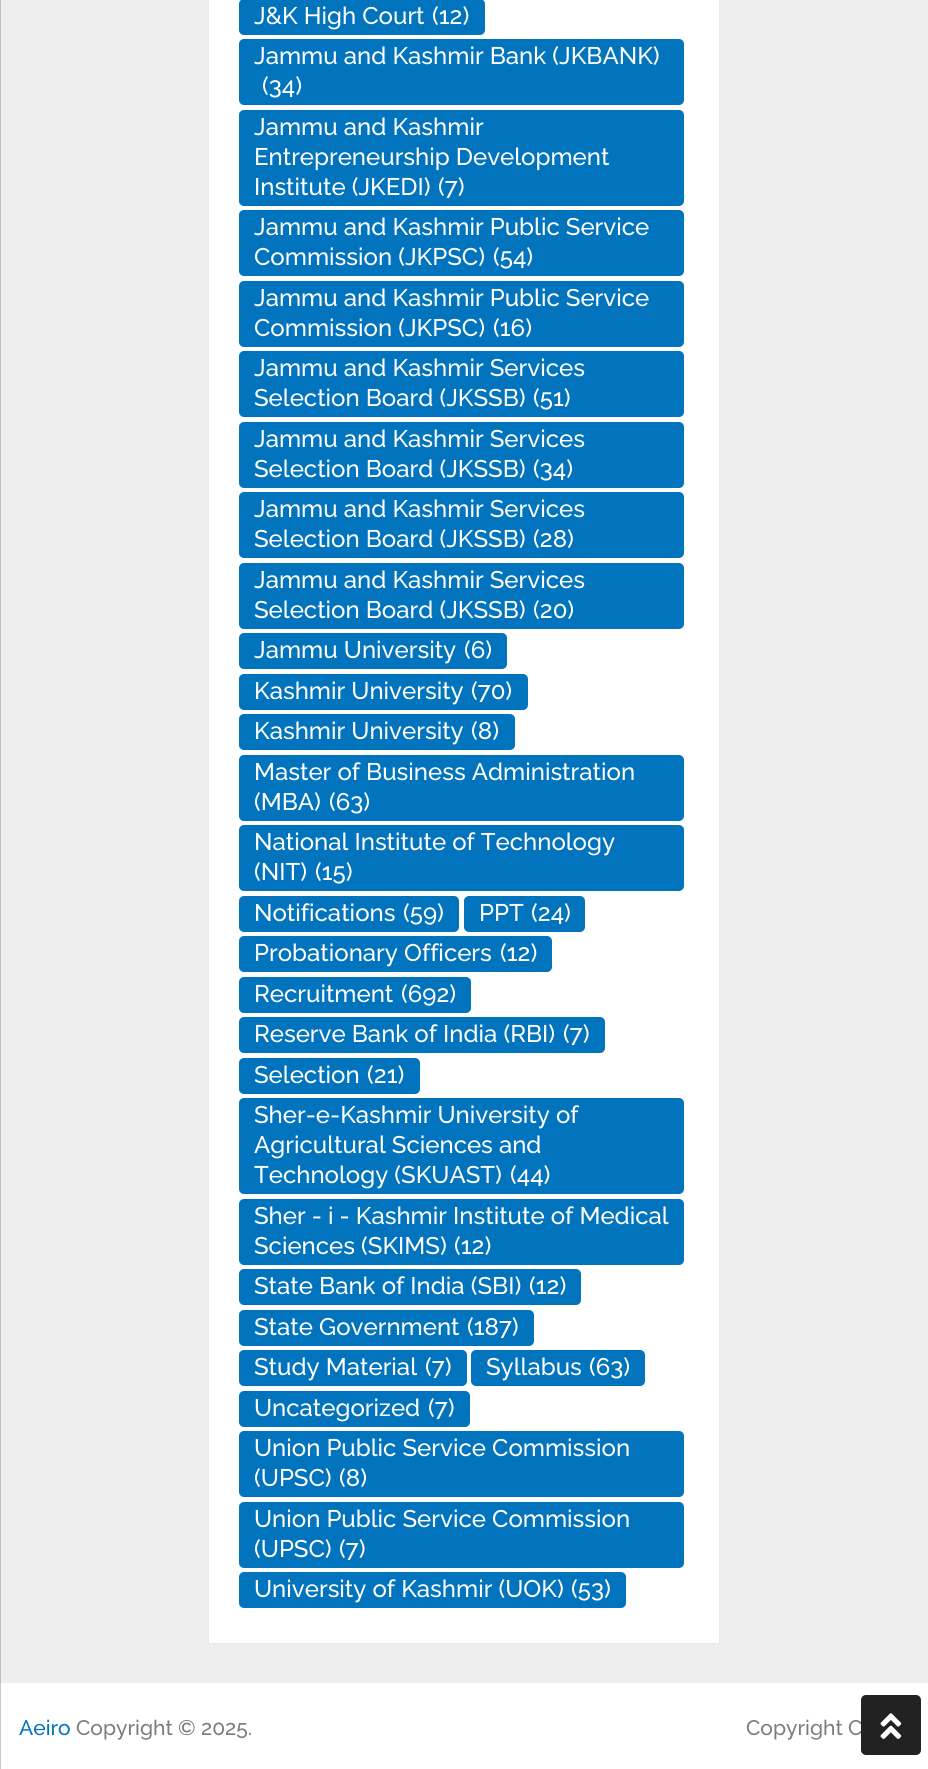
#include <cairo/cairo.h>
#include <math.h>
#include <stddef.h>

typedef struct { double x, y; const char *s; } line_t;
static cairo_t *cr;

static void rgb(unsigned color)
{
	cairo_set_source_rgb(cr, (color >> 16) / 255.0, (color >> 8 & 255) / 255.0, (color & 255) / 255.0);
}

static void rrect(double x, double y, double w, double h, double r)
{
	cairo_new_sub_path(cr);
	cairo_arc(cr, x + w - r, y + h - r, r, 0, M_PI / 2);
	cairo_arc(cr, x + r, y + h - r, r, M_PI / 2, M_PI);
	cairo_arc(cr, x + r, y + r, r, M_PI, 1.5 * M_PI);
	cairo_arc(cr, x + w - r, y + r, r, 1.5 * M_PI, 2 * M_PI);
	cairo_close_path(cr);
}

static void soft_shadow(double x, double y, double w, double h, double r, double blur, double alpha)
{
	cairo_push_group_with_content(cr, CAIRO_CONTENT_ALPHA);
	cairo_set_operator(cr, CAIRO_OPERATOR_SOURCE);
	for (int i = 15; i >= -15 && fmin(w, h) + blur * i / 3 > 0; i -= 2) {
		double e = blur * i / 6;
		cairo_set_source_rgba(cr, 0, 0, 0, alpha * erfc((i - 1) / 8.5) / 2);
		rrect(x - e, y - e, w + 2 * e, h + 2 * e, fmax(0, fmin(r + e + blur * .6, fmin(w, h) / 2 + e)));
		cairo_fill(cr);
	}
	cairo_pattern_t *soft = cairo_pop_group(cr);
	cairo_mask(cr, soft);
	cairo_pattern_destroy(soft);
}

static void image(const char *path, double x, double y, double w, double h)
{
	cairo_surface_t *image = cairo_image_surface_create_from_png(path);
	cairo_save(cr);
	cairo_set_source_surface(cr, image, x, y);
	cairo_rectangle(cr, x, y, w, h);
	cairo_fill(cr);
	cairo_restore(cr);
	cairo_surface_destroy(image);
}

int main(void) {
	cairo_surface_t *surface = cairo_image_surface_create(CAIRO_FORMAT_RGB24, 928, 1769);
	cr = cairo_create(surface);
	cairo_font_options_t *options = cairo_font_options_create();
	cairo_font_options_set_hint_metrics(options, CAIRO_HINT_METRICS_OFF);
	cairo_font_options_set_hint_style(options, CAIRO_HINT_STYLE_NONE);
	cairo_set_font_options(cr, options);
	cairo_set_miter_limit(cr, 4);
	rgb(0xeeeeee);
	cairo_paint(cr);
	rgb(0xffffff);
	cairo_rectangle(cr, 0, 1683, 928, 86);
	cairo_fill(cr);
	cairo_set_source_rgba(cr, 0, 0, 0, 0.2);
	cairo_rectangle(cr, 0, 0, 1, 1769);
	cairo_fill(cr);
	rgb(0x323232);
	soft_shadow(209, -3, 510, 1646, 0, 1, 0.1);
	rgb(0xffffff);
	cairo_rectangle(cr, 209, 0, 510, 1643);
	cairo_fill(cr);
	rgb(0x0274be);
	rrect(239, -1, 246, 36, 5);
	cairo_fill(cr);
	rrect(239, 39, 445, 66, 5);
	cairo_fill(cr);
	rrect(239, 110, 445, 96, 5);
	cairo_fill(cr);
	rrect(239, 210, 445, 66, 5);
	cairo_fill(cr);
	rrect(239, 281, 445, 66, 5);
	cairo_fill(cr);
	rrect(239, 351, 445, 66, 5);
	cairo_fill(cr);
	rrect(239, 422, 445, 66, 5);
	cairo_fill(cr);
	rrect(239, 492, 445, 66, 5);
	cairo_fill(cr);
	rrect(239, 563, 445, 66, 5);
	cairo_fill(cr);
	rrect(239, 633, 268, 36, 5);
	cairo_fill(cr);
	rrect(239, 674, 289, 36, 5);
	cairo_fill(cr);
	rrect(239, 714, 276, 36, 5);
	cairo_fill(cr);
	rrect(239, 755, 445, 66, 5);
	cairo_fill(cr);
	rrect(239, 825, 445, 66, 5);
	cairo_fill(cr);
	rrect(239, 896, 220, 36, 5);
	cairo_fill(cr);
	rrect(464, 896, 121, 36, 5);
	cairo_fill(cr);
	rrect(239, 936, 313, 36, 5);
	cairo_fill(cr);
	rrect(239, 977, 232, 36, 5);
	cairo_fill(cr);
	rrect(239, 1017, 366, 36, 5);
	cairo_fill(cr);
	rrect(239, 1058, 181, 36, 5);
	cairo_fill(cr);
	rrect(239, 1098, 445, 96, 5);
	cairo_fill(cr);
	rrect(239, 1199, 445, 66, 5);
	cairo_fill(cr);
	rrect(239, 1269, 342, 36, 5);
	cairo_fill(cr);
	rrect(239, 1310, 295, 36, 5);
	cairo_fill(cr);
	rrect(239, 1350, 228, 36, 5);
	cairo_fill(cr);
	rrect(471, 1350, 174, 36, 5);
	cairo_fill(cr);
	rrect(239, 1391, 231, 36, 5);
	cairo_fill(cr);
	rrect(239, 1431, 445, 66, 5);
	cairo_fill(cr);
	rrect(239, 1502, 445, 66, 5);
	cairo_fill(cr);
	rrect(239, 1572, 387, 36, 5);
	cairo_fill(cr);
	cairo_select_font_face(cr, "Raleway Medium", CAIRO_FONT_SLANT_NORMAL, CAIRO_FONT_WEIGHT_NORMAL);
	cairo_set_font_size(cr, 24);
	rgb(0xffffff);
	{
		static const line_t items[] = {
			{254, 24, "J&K High Court"},
			{432, 24, "(12)"},
			{254, 64, "Jammu and Kashmir Bank (JKBANK)"},
			{262, 94, "(34)"},
			{254, 135, "Jammu and Kashmir"},
			{254, 165, "Entrepreneurship Development"},
			{254, 195, "Institute (JKEDI)"},
			{438, 195, "(7)"},
			{254, 235, "Jammu and Kashmir Public Service"},
			{254, 265, "Commission (JKPSC)"},
			{493, 265, "(54)"},
			{254, 306, "Jammu and Kashmir Public Service"},
			{254, 336, "Commission (JKPSC)"},
			{493, 336, "(16)"},
			{254, 376, "Jammu and Kashmir Services"},
			{254, 406, "Selection Board (JKSSB)"},
			{533, 406, "(51)"},
			{254, 447, "Jammu and Kashmir Services"},
			{254, 477, "Selection Board (JKSSB)"},
			{533, 477, "(34)"},
			{254, 517, "Jammu and Kashmir Services"},
			{254, 547, "Selection Board (JKSSB)"},
			{533, 547, "(28)"},
			{254, 588, "Jammu and Kashmir Services"},
			{254, 618, "Selection Board (JKSSB)"},
			{533, 618, "(20)"},
			{254, 658, "Jammu University"},
			{464, 658, "(6)"},
			{254, 699, "Kashmir University"},
			{471, 699, "(70)"},
			{254, 739, "Kashmir University"},
			{471, 739, "(8)"},
			{254, 780, "Master of Business Administration"},
			{254, 810, "(MBA)"},
			{329, 810, "(63)"},
			{254, 850, "National Institute of Technology"},
			{254, 880, "(NIT)"},
			{315, 880, "(15)"},
			{254, 921, "Notifications"},
			{403, 921, "(59)"},
			{479, 921, "PPT"},
			{531, 921, "(24)"},
			{254, 961, "Probationary Officers"},
			{500, 961, "(12)"},
			{254, 1002, "Recruitment"},
			{401, 1002, "(692)"},
			{254, 1042, "Reserve Bank of India (RBI)"},
			{563, 1042, "(7)"},
			{254, 1083, "Selection"},
			{367, 1083, "(21)"},
			{254, 1123, "Sher-e-Kashmir University of"},
			{254, 1153, "Agricultural Sciences and"},
			{254, 1183, "Technology (SKUAST)"},
			{510, 1183, "(44)"},
			{254, 1224, "Sher - i - Kashmir Institute of Medical"},
			{254, 1254, "Sciences (SKIMS)"},
			{454, 1254, "(12)"},
			{254, 1294, "State Bank of India (SBI)"},
			{529, 1294, "(12)"},
			{254, 1335, "State Government"},
			{467, 1335, "(187)"},
			{254, 1375, "Study Material"},
			{425, 1375, "(7)"},
			{486, 1375, "Syllabus"},
			{589, 1375, "(63)"},
			{254, 1416, "Uncategorized"},
			{428, 1416, "(7)"},
			{254, 1456, "Union Public Service Commission"},
			{254, 1486, "(UPSC)"},
			{339, 1486, "(8)"},
			{254, 1527, "Union Public Service Commission"},
			{254, 1557, "(UPSC)"},
			{339, 1557, "(7)"},
			{254, 1597, "University of Kashmir (UOK)"},
			{571, 1597, "(53)"},
		};
		for (size_t i = 0; i < sizeof items / sizeof *items; i++) {
			cairo_move_to(cr, items[i].x, items[i].y);
			cairo_show_text(cr, items[i].s);
		}
	}
	cairo_set_font_size(cr, 21);
	rgb(0x0274be);
	cairo_move_to(cr, 19, 1735);
	cairo_show_text(cr, "Aeiro");
	rgb(0x7e7d7d);
	cairo_move_to(cr, 76, 1735);
	cairo_show_text(cr, "Copyright © 2025.");
	cairo_move_to(cr, 746, 1735);
	cairo_show_text(cr, "Copyright C");
	rgb(0x222222);
	rrect(861, 1695, 60, 60, 5);
	cairo_fill(cr);
	image("img/1.png", 880, 1713, 22, 26);
	cairo_surface_write_to_png(surface, "page.png");
	cairo_font_options_destroy(options);
	cairo_destroy(cr);
	cairo_surface_destroy(surface);
	return 0;
}
